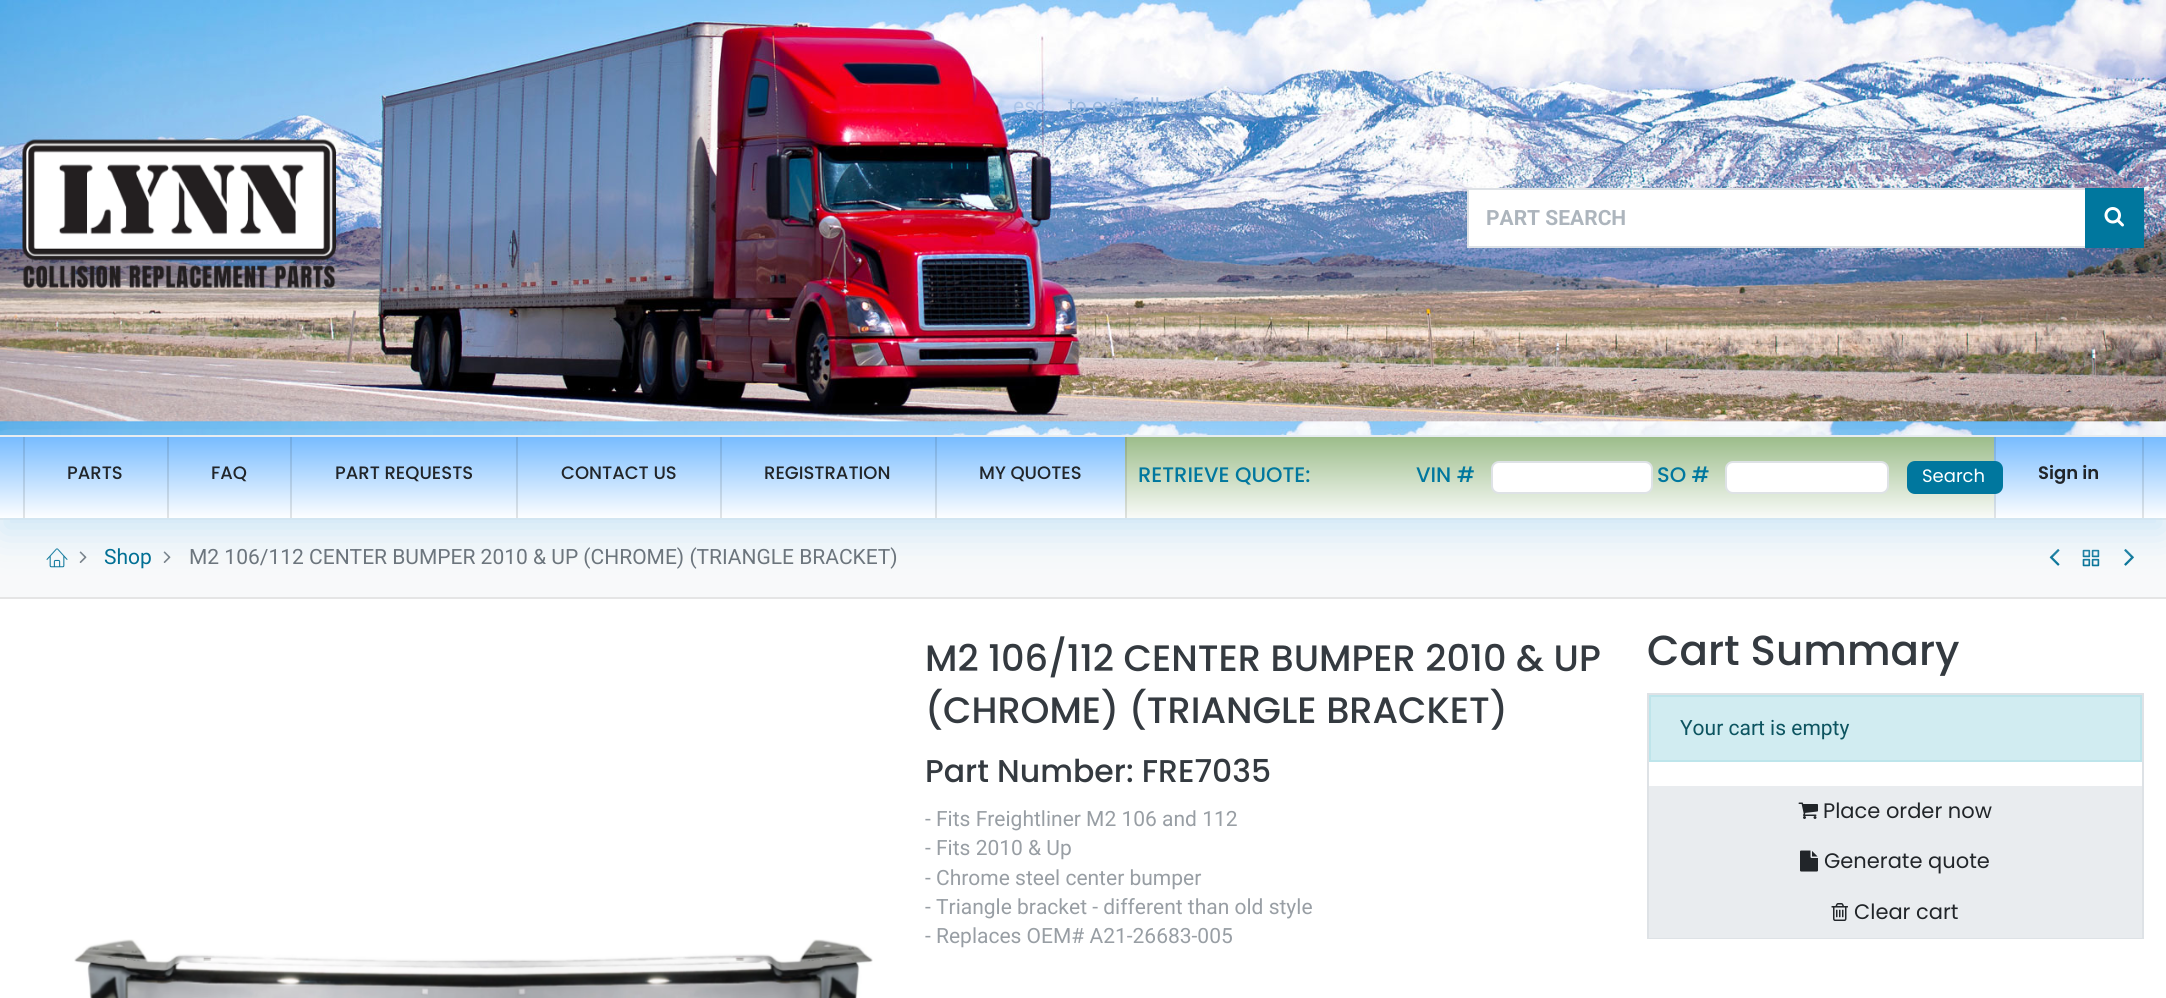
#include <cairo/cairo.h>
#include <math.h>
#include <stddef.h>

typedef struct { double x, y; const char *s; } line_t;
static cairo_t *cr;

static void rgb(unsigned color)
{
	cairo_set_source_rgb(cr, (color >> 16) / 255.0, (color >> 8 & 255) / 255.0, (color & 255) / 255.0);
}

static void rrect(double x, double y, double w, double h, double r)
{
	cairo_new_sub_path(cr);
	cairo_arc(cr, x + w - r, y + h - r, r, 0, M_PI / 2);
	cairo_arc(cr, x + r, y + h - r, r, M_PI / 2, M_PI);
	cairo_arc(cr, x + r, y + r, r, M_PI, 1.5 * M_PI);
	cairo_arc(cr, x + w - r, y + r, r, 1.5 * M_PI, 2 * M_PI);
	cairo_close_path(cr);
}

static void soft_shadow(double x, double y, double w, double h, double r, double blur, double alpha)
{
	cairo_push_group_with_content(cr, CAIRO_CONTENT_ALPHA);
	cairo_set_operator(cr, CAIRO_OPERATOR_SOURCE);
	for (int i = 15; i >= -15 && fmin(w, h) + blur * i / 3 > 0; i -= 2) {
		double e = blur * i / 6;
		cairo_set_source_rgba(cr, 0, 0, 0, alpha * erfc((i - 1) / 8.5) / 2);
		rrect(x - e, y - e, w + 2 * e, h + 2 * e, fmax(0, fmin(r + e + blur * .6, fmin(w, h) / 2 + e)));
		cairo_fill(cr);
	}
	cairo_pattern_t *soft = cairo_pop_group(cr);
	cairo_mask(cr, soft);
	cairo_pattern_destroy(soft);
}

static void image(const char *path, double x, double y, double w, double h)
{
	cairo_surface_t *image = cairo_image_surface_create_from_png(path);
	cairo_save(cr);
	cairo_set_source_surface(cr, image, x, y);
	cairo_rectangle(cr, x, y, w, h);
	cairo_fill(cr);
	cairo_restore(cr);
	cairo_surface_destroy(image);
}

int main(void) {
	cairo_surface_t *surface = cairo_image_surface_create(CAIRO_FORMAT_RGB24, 2166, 998);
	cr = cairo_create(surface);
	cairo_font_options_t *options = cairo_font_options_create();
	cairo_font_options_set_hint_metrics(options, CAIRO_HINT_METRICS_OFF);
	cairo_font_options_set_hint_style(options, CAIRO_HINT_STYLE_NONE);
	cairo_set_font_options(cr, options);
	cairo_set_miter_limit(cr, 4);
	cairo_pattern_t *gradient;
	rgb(0xffffff);
	cairo_paint(cr);
	rgb(0xedeeef);
	cairo_rectangle(cr, 0, 435, 2166, 2);
	cairo_fill(cr);
	image("img/1.png", 0, 0, 2166, 435);
	image("img/2.png", 22, 139, 314, 149);
	rgb(0xffffff);
	cairo_rectangle(cr, 1468, 189, 618, 58);
	cairo_fill_preserve(cr);
	rgb(0xdee2e6);
	cairo_stroke(cr);
	rgb(0x00779e);
	cairo_rectangle(cr, 2085, 188, 59, 60);
	cairo_fill(cr);
	image("img/3.png", 2104, 207, 20, 20);
	rgb(0xf8f9fa);
	cairo_rectangle(cr, 0, 520, 2166, 77);
	cairo_fill(cr);
	rgb(0xe5e5e5);
	cairo_rectangle(cr, 0, 518, 2166, 2);
	cairo_fill(cr);
	image("img/4.png", 46, 548, 22, 20);
	image("img/5.png", 79, 551, 8, 12);
	image("img/5.png", 163, 551, 8, 12);
	image("img/6.png", 2049, 549, 11, 17);
	image("img/7.png", 2082, 549, 18, 18);
	image("img/8.png", 2124, 549, 10, 17);
	rgb(0xcee7f7);
	soft_shadow(0, 452, 2166, 81, 0, 19.5, 1);
	gradient = cairo_pattern_create_linear(1083, 436, 1083, 518);
	cairo_pattern_add_color_stop_rgba(gradient, 0, 0.463, 0.733, 1, 1);
	cairo_pattern_add_color_stop_rgba(gradient, 1, 0.992, 0.996, 1, 1);
	cairo_set_source(cr, gradient);
	cairo_pattern_destroy(gradient);
	cairo_rectangle(cr, 0, 437, 2166, 81);
	cairo_fill(cr);
	cairo_set_source_rgba(cr, 0.129, 0.145, 0.161, 0.12);
	cairo_rectangle(cr, 23, 437, 2, 81);
	cairo_fill(cr);
	cairo_rectangle(cr, 167, 437, 2, 81);
	cairo_fill(cr);
	cairo_rectangle(cr, 290, 437, 2, 81);
	cairo_fill(cr);
	cairo_rectangle(cr, 516, 437, 2, 81);
	cairo_fill(cr);
	cairo_rectangle(cr, 720, 437, 2, 81);
	cairo_fill(cr);
	cairo_rectangle(cr, 935, 437, 2, 81);
	cairo_fill(cr);
	gradient = cairo_pattern_create_linear(1560, 436, 1560, 518);
	cairo_pattern_add_color_stop_rgba(gradient, 0, 0.608, 0.737, 0.537, 1);
	cairo_pattern_add_color_stop_rgba(gradient, 1, 0.976, 0.984, 0.973, 1);
	cairo_set_source(cr, gradient);
	cairo_pattern_destroy(gradient);
	cairo_rectangle(cr, 1125, 437, 869, 81);
	cairo_fill(cr);
	cairo_set_source_rgba(cr, 0.129, 0.145, 0.161, 0.12);
	cairo_rectangle(cr, 1125, 437, 2, 81);
	cairo_fill(cr);
	rgb(0xffffff);
	rrect(1492, 462, 160, 31, 7);
	cairo_fill_preserve(cr);
	rgb(0xdee2e6);
	cairo_stroke(cr);
	rgb(0xffffff);
	rrect(1726, 462, 162, 31, 7);
	cairo_fill_preserve(cr);
	rgb(0xdee2e6);
	cairo_stroke(cr);
	cairo_set_source_rgba(cr, 0.129, 0.145, 0.161, 0.12);
	cairo_rectangle(cr, 1994, 437, 2, 81);
	cairo_fill(cr);
	rgb(0x00779e);
	rrect(1908, 462, 94, 31, 7);
	cairo_fill_preserve(cr);
	cairo_stroke(cr);
	cairo_set_source_rgba(cr, 0.129, 0.145, 0.161, 0.12);
	cairo_rectangle(cr, 2142, 437, 2, 81);
	cairo_fill(cr);
	rgb(0xe5e5e5);
	cairo_rectangle(cr, 0, 597, 2166, 2);
	cairo_fill(cr);
	cairo_rectangle(cr, 1648, 694, 495, 244);
	rgb(0xdee2e6);
	cairo_stroke(cr);
	rgb(0xd1ecf1);
	cairo_rectangle(cr, 1650, 696, 491, 65);
	cairo_fill_preserve(cr);
	rgb(0xbee5eb);
	cairo_stroke(cr);
	rgb(0xe9ecef);
	cairo_rectangle(cr, 1649, 786, 493, 152);
	cairo_fill(cr);
	image("img/9.png", 1798, 802, 20, 17);
	image("img/10.png", 1800, 850, 18, 22);
	image("img/11.png", 1831, 903, 17, 18);
	image("img/12.png", 74, 939, 799, 59);
	cairo_select_font_face(cr, "Roboto", CAIRO_FONT_SLANT_NORMAL, CAIRO_FONT_WEIGHT_NORMAL);
	cairo_set_font_size(cr, 21);
	rgb(0xacc5e9);
	cairo_move_to(cr, 1013, 113);
	cairo_show_text(cr, "esc");
	rgb(0x97b7de);
	cairo_move_to(cr, 1068, 113);
	cairo_show_text(cr, "to exit full screen");
	cairo_select_font_face(cr, "Roboto", CAIRO_FONT_SLANT_NORMAL, CAIRO_FONT_WEIGHT_BOLD);
	rgb(0xadb5bd);
	cairo_move_to(cr, 1486, 225);
	cairo_show_text(cr, "PART SEARCH");
	cairo_select_font_face(cr, "Poppins Medium", CAIRO_FONT_SLANT_NORMAL, CAIRO_FONT_WEIGHT_NORMAL);
	cairo_set_font_size(cr, 18);
	rgb(0x212529);
	{
		static const line_t items[] = {
			{67, 479, "PARTS"},
			{211, 479, "FAQ"},
			{335, 479, "PART REQUESTS"},
			{561, 479, "CONTACT US"},
			{764, 479, "REGISTRATION"},
			{979, 479, "MY QUOTES"},
		};
		for (size_t i = 0; i < sizeof items / sizeof *items; i++) {
			cairo_move_to(cr, items[i].x, items[i].y);
			cairo_show_text(cr, items[i].s);
		}
	}
	cairo_set_font_size(cr, 21);
	rgb(0x00779e);
	{
		static const line_t items[] = {
			{1138, 482, "RETRIEVE QUOTE:"},
			{1416, 482, "VIN #"},
			{1657, 482, "SO #"},
		};
		for (size_t i = 0; i < sizeof items / sizeof *items; i++) {
			cairo_move_to(cr, items[i].x, items[i].y);
			cairo_show_text(cr, items[i].s);
		}
	}
	cairo_select_font_face(cr, "Poppins", CAIRO_FONT_SLANT_NORMAL, CAIRO_FONT_WEIGHT_NORMAL);
	cairo_set_font_size(cr, 18);
	rgb(0xffffff);
	cairo_move_to(cr, 1922, 482);
	cairo_show_text(cr, "Search");
	cairo_select_font_face(cr, "Poppins SemiBold", CAIRO_FONT_SLANT_NORMAL, CAIRO_FONT_WEIGHT_NORMAL);
	rgb(0x212529);
	cairo_move_to(cr, 2038, 479);
	cairo_show_text(cr, "Sign in");
	cairo_select_font_face(cr, "Roboto", CAIRO_FONT_SLANT_NORMAL, CAIRO_FONT_WEIGHT_NORMAL);
	cairo_set_font_size(cr, 21);
	rgb(0x006f94);
	cairo_move_to(cr, 104, 564);
	cairo_show_text(cr, "Shop");
	rgb(0x6c757d);
	cairo_move_to(cr, 189, 564);
	cairo_show_text(cr, "M2 106/112 CENTER BUMPER 2010 & UP (CHROME) (TRIANGLE BRACKET)");
	cairo_select_font_face(cr, "Poppins Medium", CAIRO_FONT_SLANT_NORMAL, CAIRO_FONT_WEIGHT_NORMAL);
	cairo_set_font_size(cr, 36.75);
	rgb(0x343a40);
	cairo_move_to(cr, 925, 671);
	cairo_show_text(cr, "M2 106/112 CENTER BUMPER 2010 & UP");
	cairo_move_to(cr, 925, 723);
	cairo_show_text(cr, "(CHROME) (TRIANGLE BRACKET)");
	cairo_set_font_size(cr, 31.5);
	cairo_move_to(cr, 925, 782);
	cairo_show_text(cr, "Part Number: FRE7035");
	cairo_select_font_face(cr, "Roboto", CAIRO_FONT_SLANT_NORMAL, CAIRO_FONT_WEIGHT_NORMAL);
	cairo_set_font_size(cr, 21);
	rgb(0x989ea4);
	{
		static const line_t items[] = {
			{925, 826, "- Fits Freightliner M2 106 and 112"},
			{925, 855, "- Fits 2010 & Up"},
			{925, 885, "- Chrome steel center bumper"},
			{925, 914, "- Triangle bracket - different than old style"},
			{925, 943, "- Replaces OEM# A21-26683-005"},
		};
		for (size_t i = 0; i < sizeof items / sizeof *items; i++) {
			cairo_move_to(cr, items[i].x, items[i].y);
			cairo_show_text(cr, items[i].s);
		}
	}
	cairo_select_font_face(cr, "Poppins Medium", CAIRO_FONT_SLANT_NORMAL, CAIRO_FONT_WEIGHT_NORMAL);
	cairo_set_font_size(cr, 42);
	rgb(0x343a40);
	cairo_move_to(cr, 1647, 665);
	cairo_show_text(cr, "Cart Summary");
	cairo_select_font_face(cr, "Roboto", CAIRO_FONT_SLANT_NORMAL, CAIRO_FONT_WEIGHT_NORMAL);
	cairo_set_font_size(cr, 21);
	rgb(0x0c5460);
	cairo_move_to(cr, 1680, 735);
	cairo_show_text(cr, "Your cart is empty");
	cairo_select_font_face(cr, "Poppins", CAIRO_FONT_SLANT_NORMAL, CAIRO_FONT_WEIGHT_NORMAL);
	rgb(0x212529);
	{
		static const line_t items[] = {
			{1823, 818, "Place order now"},
			{1824, 868, "Generate quote"},
			{1854, 919, "Clear cart"},
		};
		for (size_t i = 0; i < sizeof items / sizeof *items; i++) {
			cairo_move_to(cr, items[i].x, items[i].y);
			cairo_show_text(cr, items[i].s);
		}
	}
	cairo_surface_write_to_png(surface, "page.png");
	cairo_font_options_destroy(options);
	cairo_destroy(cr);
	cairo_surface_destroy(surface);
	return 0;
}
